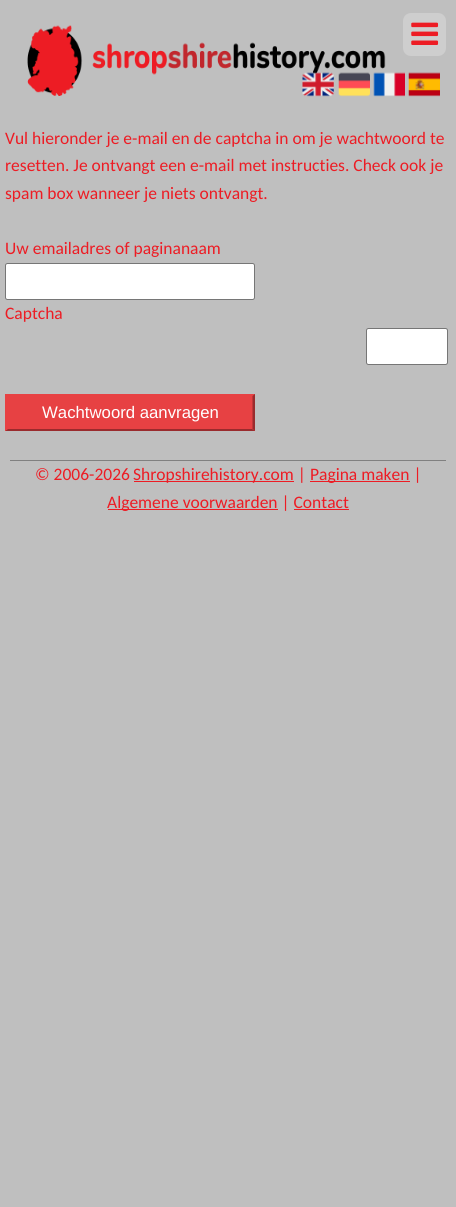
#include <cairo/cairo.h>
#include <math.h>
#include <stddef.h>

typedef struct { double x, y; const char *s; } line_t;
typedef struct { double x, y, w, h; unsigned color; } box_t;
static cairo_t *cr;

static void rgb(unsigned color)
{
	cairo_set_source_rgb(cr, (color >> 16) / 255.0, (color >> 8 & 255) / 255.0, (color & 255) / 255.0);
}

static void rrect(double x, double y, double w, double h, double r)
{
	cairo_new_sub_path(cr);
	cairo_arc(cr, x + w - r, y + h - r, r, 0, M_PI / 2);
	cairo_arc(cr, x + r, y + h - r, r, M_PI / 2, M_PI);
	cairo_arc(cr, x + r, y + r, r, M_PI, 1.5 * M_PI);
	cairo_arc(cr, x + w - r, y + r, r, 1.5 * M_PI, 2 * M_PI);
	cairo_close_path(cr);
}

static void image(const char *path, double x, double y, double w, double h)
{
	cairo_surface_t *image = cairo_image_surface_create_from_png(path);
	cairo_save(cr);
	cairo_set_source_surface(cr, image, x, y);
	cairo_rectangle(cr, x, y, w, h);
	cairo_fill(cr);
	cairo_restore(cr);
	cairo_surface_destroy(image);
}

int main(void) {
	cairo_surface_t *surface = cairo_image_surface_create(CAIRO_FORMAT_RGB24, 456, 1207);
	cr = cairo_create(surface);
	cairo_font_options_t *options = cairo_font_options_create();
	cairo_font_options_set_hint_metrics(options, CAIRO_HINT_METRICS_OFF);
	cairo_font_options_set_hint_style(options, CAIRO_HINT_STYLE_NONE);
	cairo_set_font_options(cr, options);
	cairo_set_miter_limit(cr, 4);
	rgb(0xbfbfbf);
	cairo_paint(cr);
	image("img/1.png", 27, 25, 359, 71);
	rgb(0xcecece);
	rrect(403, 13, 43, 43, 8);
	cairo_fill(cr);
	image("img/2.png", 411, 22, 28, 23);
	image("img/3.png", 302, 72, 32, 25);
	image("img/4.png", 338, 72, 32, 25);
	image("img/5.png", 373, 72, 32, 25);
	image("img/6.png", 408, 72, 32, 25);
	rgb(0xffffff);
	rrect(5.5, 263.5, 249, 36, 2);
	cairo_fill_preserve(cr);
	rgb(0x767676);
	cairo_set_line_width(cr, 1);
	cairo_stroke(cr);
	rgb(0xffffff);
	rrect(366.5, 328.5, 81, 36, 2);
	cairo_fill_preserve(cr);
	rgb(0x767676);
	cairo_stroke(cr);
	rgb(0xe74143);
	cairo_rectangle(cr, 5, 394, 250, 37);
	cairo_fill(cr);
	rgb(0x9a2b2d);
	cairo_new_path(cr);
	cairo_move_to(cr, 255, 394);
	cairo_line_to(cr, 255, 431);
	cairo_line_to(cr, 252.5, 429);
	cairo_line_to(cr, 252.5, 396);
	cairo_close_path(cr);
	cairo_fill(cr);
	cairo_new_path(cr);
	cairo_move_to(cr, 255, 431);
	cairo_line_to(cr, 5, 431);
	cairo_line_to(cr, 8, 429);
	cairo_line_to(cr, 252, 429);
	cairo_close_path(cr);
	cairo_fill(cr);
	rgb(0xe74143);
	cairo_new_path(cr);
	cairo_move_to(cr, 5, 431);
	cairo_line_to(cr, 5, 394);
	cairo_line_to(cr, 7.5, 396);
	cairo_line_to(cr, 7.5, 429);
	cairo_close_path(cr);
	cairo_fill(cr);
	{
		static const box_t items[] = {
			{10, 460, 436, 1, 0x808080},
			{134, 481, 160, 1, 0xed1c24},
			{310, 481, 100, 1, 0xed1c24},
			{108, 509, 170, 1, 0xed1c24},
			{294, 509, 55, 1, 0xed1c24},
		};
		for (size_t i = 0; i < sizeof items / sizeof *items; i++) {
			rgb(items[i].color);
			cairo_rectangle(cr, items[i].x, items[i].y, items[i].w, items[i].h);
			cairo_fill(cr);
		}
	}
	cairo_select_font_face(cr, "Carlito", CAIRO_FONT_SLANT_NORMAL, CAIRO_FONT_WEIGHT_NORMAL);
	cairo_set_font_size(cr, 17.5);
	{
		static const line_t items[] = {
			{5, 144, "Vul hieronder je e-mail en de captcha in om je wachtwoord te"},
			{5, 171, "resetten. Je ontvangt een e-mail met instructies. Check ook je"},
			{5, 199, "spam box wanneer je niets ontvangt."},
			{5, 254, "Uw emailadres of paginanaam"},
			{5, 319, "Captcha"},
		};
		for (size_t i = 0; i < sizeof items / sizeof *items; i++) {
			cairo_move_to(cr, items[i].x, items[i].y);
			cairo_show_text(cr, items[i].s);
		}
	}
	cairo_select_font_face(cr, "Liberation Sans", CAIRO_FONT_SLANT_NORMAL, CAIRO_FONT_WEIGHT_NORMAL);
	cairo_set_font_size(cr, 16.75);
	rgb(0xffffff);
	cairo_move_to(cr, 42, 418);
	cairo_show_text(cr, "Wachtwoord aanvragen");
	cairo_select_font_face(cr, "Carlito", CAIRO_FONT_SLANT_NORMAL, CAIRO_FONT_WEIGHT_NORMAL);
	cairo_set_font_size(cr, 17.5);
	rgb(0xed1c24);
	{
		static const line_t items[] = {
			{35, 480, "© 2006-2026"},
			{133, 480, "Shropshirehistory.com |"},
			{310, 480, "Pagina maken |"},
			{107, 508, "Algemene voorwaarden | Contact"},
		};
		for (size_t i = 0; i < sizeof items / sizeof *items; i++) {
			cairo_move_to(cr, items[i].x, items[i].y);
			cairo_show_text(cr, items[i].s);
		}
	}
	cairo_surface_write_to_png(surface, "page.png");
	cairo_font_options_destroy(options);
	cairo_destroy(cr);
	cairo_surface_destroy(surface);
	return 0;
}
